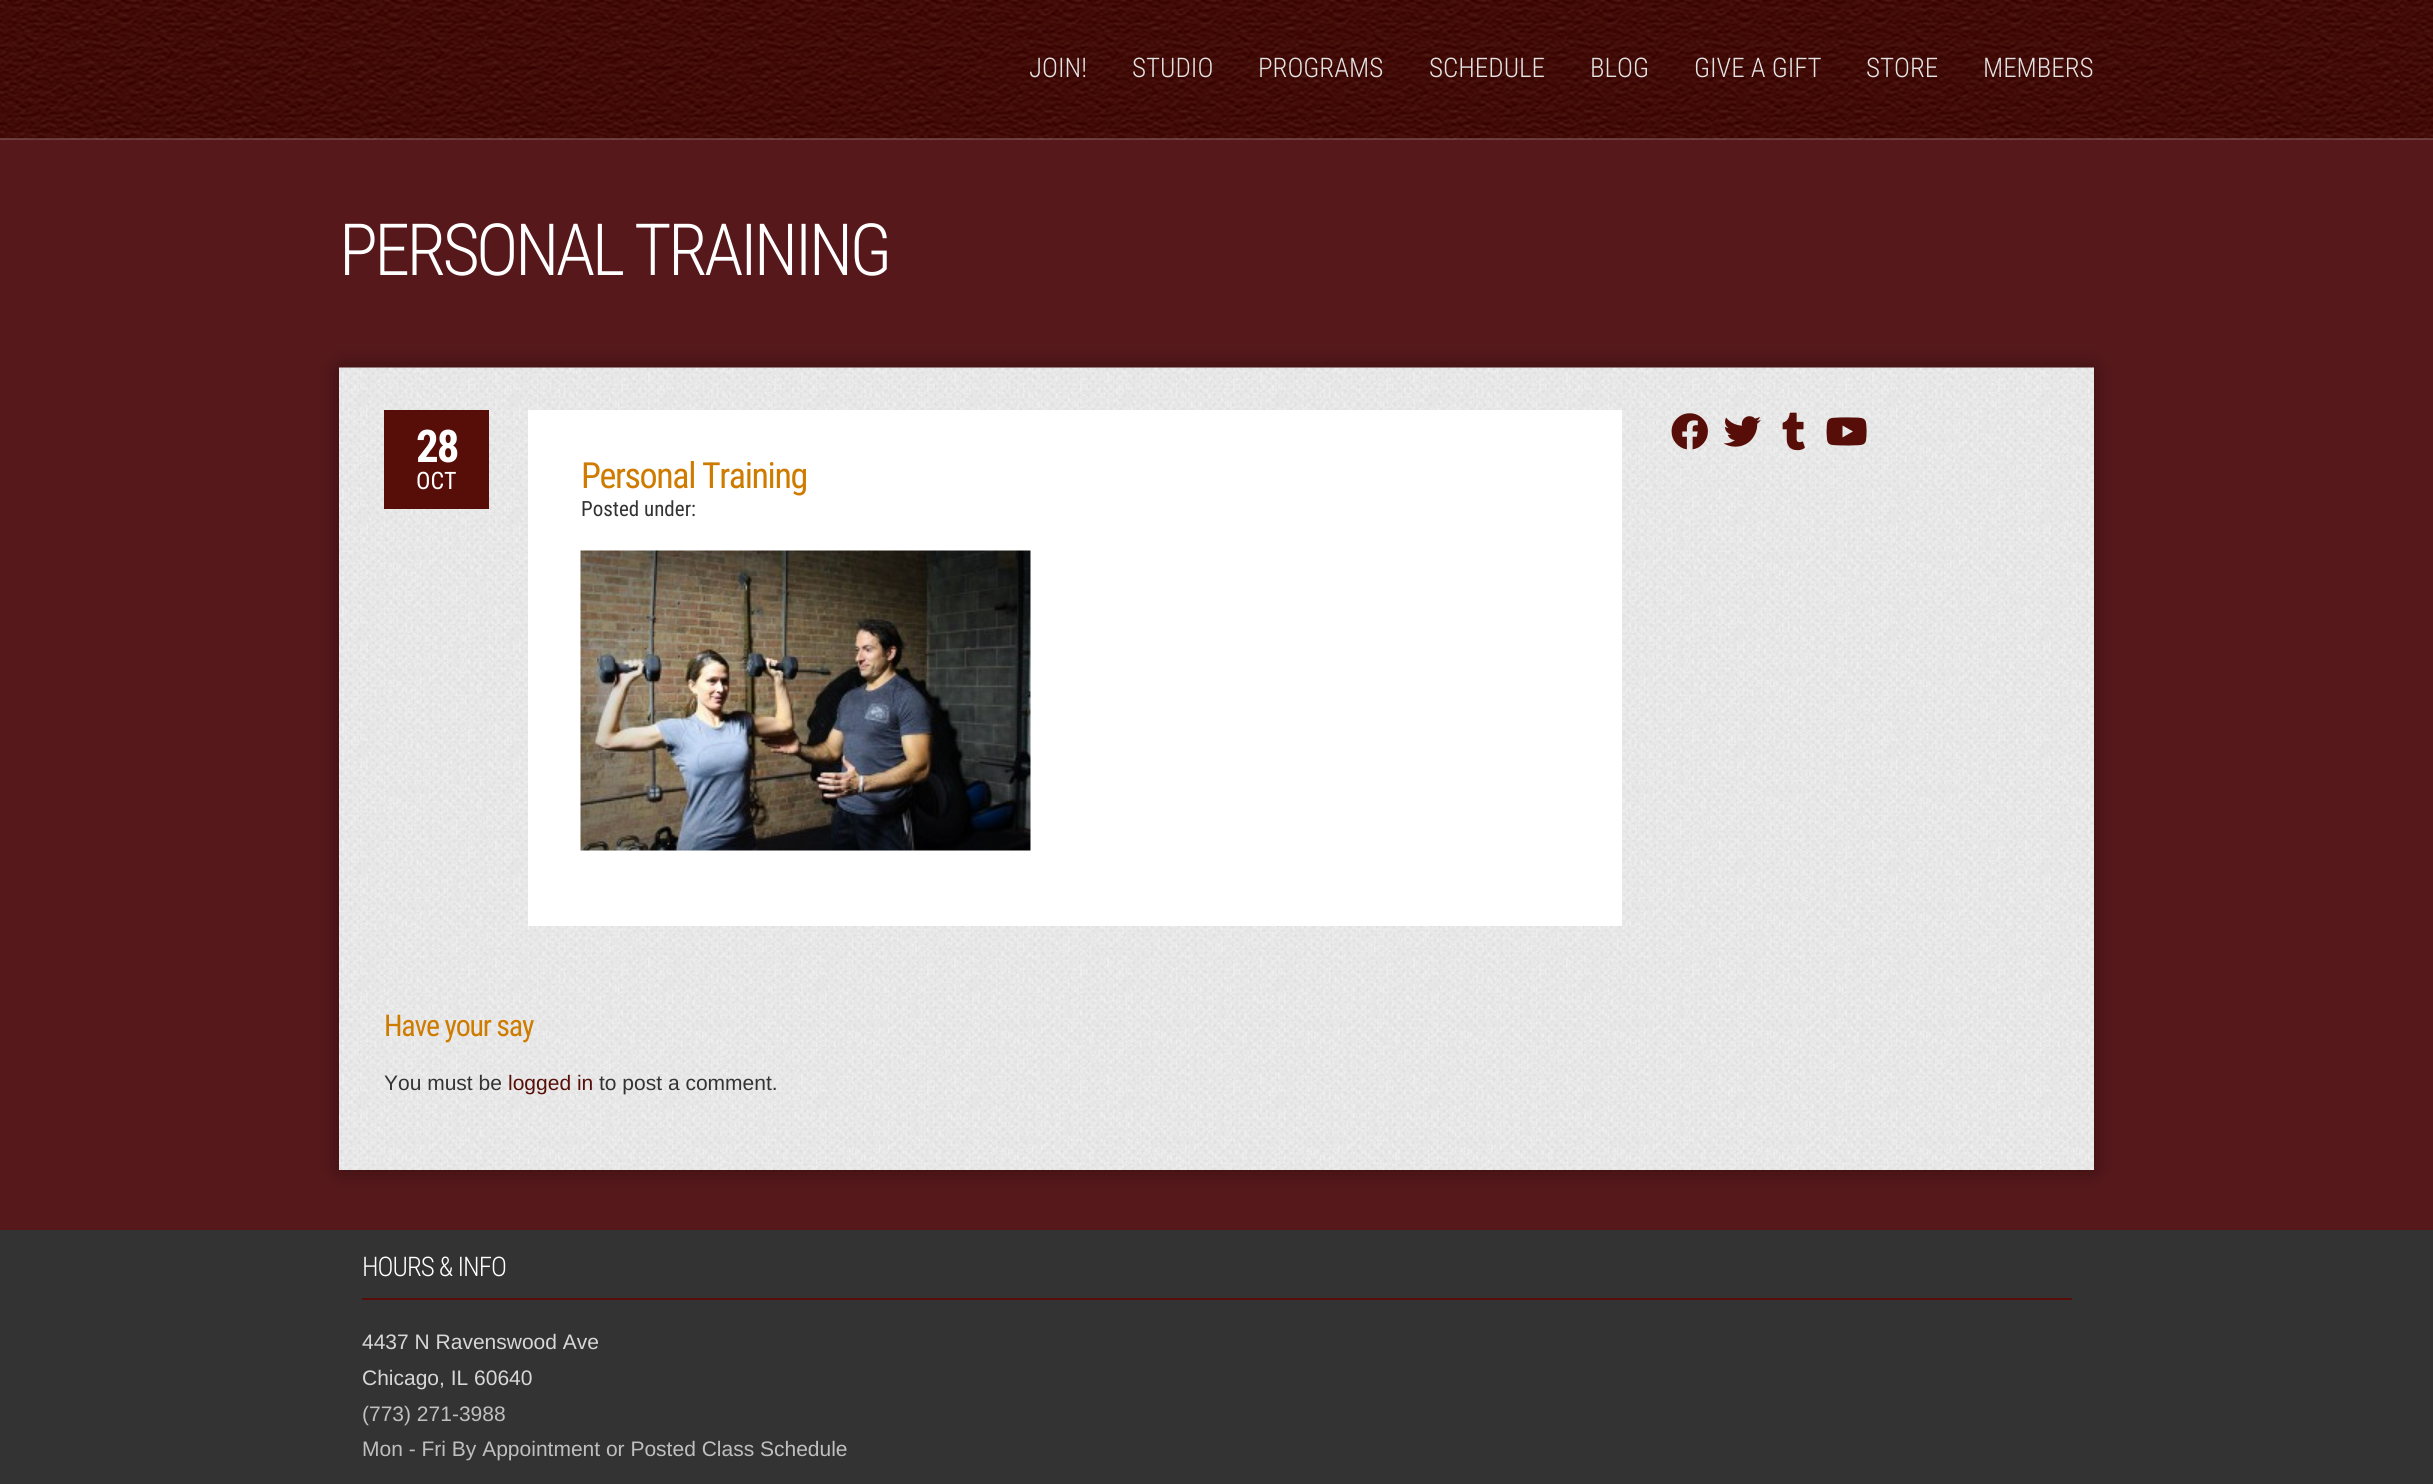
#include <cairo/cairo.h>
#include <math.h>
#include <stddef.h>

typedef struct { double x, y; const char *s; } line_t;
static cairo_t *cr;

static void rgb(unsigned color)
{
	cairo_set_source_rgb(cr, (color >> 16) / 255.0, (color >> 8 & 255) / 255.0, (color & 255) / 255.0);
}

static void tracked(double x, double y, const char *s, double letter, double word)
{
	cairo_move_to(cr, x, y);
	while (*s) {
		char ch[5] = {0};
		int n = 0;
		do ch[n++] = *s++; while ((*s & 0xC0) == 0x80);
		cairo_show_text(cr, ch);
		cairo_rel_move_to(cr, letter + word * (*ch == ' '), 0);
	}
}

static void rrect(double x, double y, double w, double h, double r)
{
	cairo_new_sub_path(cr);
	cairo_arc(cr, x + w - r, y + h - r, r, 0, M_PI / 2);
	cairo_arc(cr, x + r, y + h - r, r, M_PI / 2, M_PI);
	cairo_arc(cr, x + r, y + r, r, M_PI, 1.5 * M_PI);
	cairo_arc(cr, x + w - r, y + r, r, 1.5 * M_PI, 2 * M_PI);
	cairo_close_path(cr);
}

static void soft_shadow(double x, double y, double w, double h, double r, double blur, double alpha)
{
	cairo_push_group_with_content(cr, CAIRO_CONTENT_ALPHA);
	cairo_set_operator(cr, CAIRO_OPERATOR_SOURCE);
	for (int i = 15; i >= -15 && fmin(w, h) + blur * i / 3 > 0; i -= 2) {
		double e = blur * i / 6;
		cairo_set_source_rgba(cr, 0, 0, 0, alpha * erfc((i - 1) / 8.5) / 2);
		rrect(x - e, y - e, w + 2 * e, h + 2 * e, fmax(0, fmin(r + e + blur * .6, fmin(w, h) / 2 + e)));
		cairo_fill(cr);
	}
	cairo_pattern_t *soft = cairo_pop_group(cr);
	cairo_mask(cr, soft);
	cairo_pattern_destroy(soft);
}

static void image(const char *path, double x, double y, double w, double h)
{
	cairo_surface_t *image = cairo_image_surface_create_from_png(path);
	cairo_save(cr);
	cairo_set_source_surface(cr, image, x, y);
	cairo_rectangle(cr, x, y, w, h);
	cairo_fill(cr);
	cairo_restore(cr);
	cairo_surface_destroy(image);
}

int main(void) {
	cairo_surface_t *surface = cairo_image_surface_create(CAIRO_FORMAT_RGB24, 2433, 1484);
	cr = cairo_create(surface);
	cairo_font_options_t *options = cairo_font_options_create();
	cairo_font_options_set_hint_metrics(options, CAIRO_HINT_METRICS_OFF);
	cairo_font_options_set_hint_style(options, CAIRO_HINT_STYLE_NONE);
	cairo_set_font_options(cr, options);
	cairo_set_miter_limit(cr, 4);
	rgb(0x56181b);
	cairo_paint(cr);
	image("img/1.png", 0, 0, 2433, 140);
	cairo_set_source_rgba(cr, 1, 1, 1, 0.2);
	cairo_rectangle(cr, 0, 138, 2433, 2);
	cairo_fill(cr);
	rgb(0x000000);
	soft_shadow(339, 368, 1755, 802, 0, 12, 0.34);
	image("img/2.png", 339, 367, 1755, 803);
	rgb(0x570e08);
	cairo_rectangle(cr, 384, 410, 105, 99);
	cairo_fill(cr);
	rgb(0xffffff);
	cairo_rectangle(cr, 528, 410, 1094, 516);
	cairo_fill(cr);
	image("img/3.png", 580, 550, 451, 301);
	image("img/4.png", 1671, 413, 37, 37);
	image("img/5.png", 1723, 416, 38, 31);
	image("img/6.png", 1782, 412, 23, 39);
	image("img/7.png", 1826, 417, 41, 29);
	rgb(0x333333);
	cairo_rectangle(cr, 0, 1230, 2433, 254);
	cairo_fill(cr);
	rgb(0x570e08);
	cairo_rectangle(cr, 362, 1298, 1710, 2);
	cairo_fill(cr);
	cairo_select_font_face(cr, "Roboto Condensed Light", CAIRO_FONT_SLANT_NORMAL, CAIRO_FONT_WEIGHT_NORMAL);
	cairo_set_font_size(cr, 27);
	rgb(0xe3e3e3);
	{
		static const line_t items[] = {
			{1029, 77, "JOIN!"},
			{1132, 77, "STUDIO"},
			{1258, 77, "PROGRAMS"},
			{1429, 77, "SCHEDULE"},
			{1590, 77, "BLOG"},
			{1694, 77, "GIVE A GIFT"},
			{1866, 77, "STORE"},
			{1983, 77, "MEMBERS"},
		};
		for (size_t i = 0; i < sizeof items / sizeof *items; i++) {
			cairo_move_to(cr, items[i].x, items[i].y);
			cairo_show_text(cr, items[i].s);
		}
	}
	cairo_set_font_size(cr, 72);
	rgb(0xffffff);
	tracked(339, 275, "PERSONAL TRAINING", -3.6, 0);
	cairo_select_font_face(cr, "Roboto Condensed", CAIRO_FONT_SLANT_NORMAL, CAIRO_FONT_WEIGHT_BOLD);
	cairo_set_font_size(cr, 45);
	tracked(416, 462, "28", -2, 0);
	cairo_select_font_face(cr, "Roboto Condensed", CAIRO_FONT_SLANT_NORMAL, CAIRO_FONT_WEIGHT_NORMAL);
	cairo_set_font_size(cr, 24);
	cairo_move_to(cr, 416, 489);
	cairo_show_text(cr, "OCT");
	cairo_set_font_size(cr, 36);
	rgb(0xce7b00);
	tracked(581, 488, "Personal Training", -1.4, 0);
	cairo_set_font_size(cr, 21);
	rgb(0x333333);
	cairo_move_to(cr, 581, 516);
	cairo_show_text(cr, "Posted under:");
	cairo_set_font_size(cr, 30);
	rgb(0xce7b00);
	tracked(384, 1036, "Have your say", -1.25, 0);
	cairo_select_font_face(cr, "Liberation Sans", CAIRO_FONT_SLANT_NORMAL, CAIRO_FONT_WEIGHT_NORMAL);
	cairo_set_font_size(cr, 21);
	rgb(0x333333);
	cairo_move_to(cr, 384, 1090);
	cairo_show_text(cr, "You must be");
	rgb(0x570e08);
	cairo_move_to(cr, 508, 1090);
	cairo_show_text(cr, "logged in");
	rgb(0x333333);
	cairo_move_to(cr, 599, 1090);
	cairo_show_text(cr, "to post a comment.");
	cairo_select_font_face(cr, "Roboto Condensed Light", CAIRO_FONT_SLANT_NORMAL, CAIRO_FONT_WEIGHT_NORMAL);
	cairo_set_font_size(cr, 27);
	rgb(0xffffff);
	tracked(362, 1276, "HOURS & INFO", -1, 0);
	cairo_select_font_face(cr, "Liberation Sans", CAIRO_FONT_SLANT_NORMAL, CAIRO_FONT_WEIGHT_NORMAL);
	cairo_set_font_size(cr, 21);
	rgb(0xd7d7d7);
	cairo_move_to(cr, 362, 1349);
	cairo_show_text(cr, "4437 N Ravenswood Ave");
	cairo_move_to(cr, 362, 1385);
	cairo_show_text(cr, "Chicago, IL 60640");
	rgb(0xbfbfbf);
	cairo_move_to(cr, 362, 1421);
	cairo_show_text(cr, "(773) 271-3988");
	cairo_move_to(cr, 362, 1456);
	cairo_show_text(cr, "Mon - Fri By Appointment or Posted Class Schedule");
	cairo_surface_write_to_png(surface, "page.png");
	cairo_font_options_destroy(options);
	cairo_destroy(cr);
	cairo_surface_destroy(surface);
	return 0;
}
